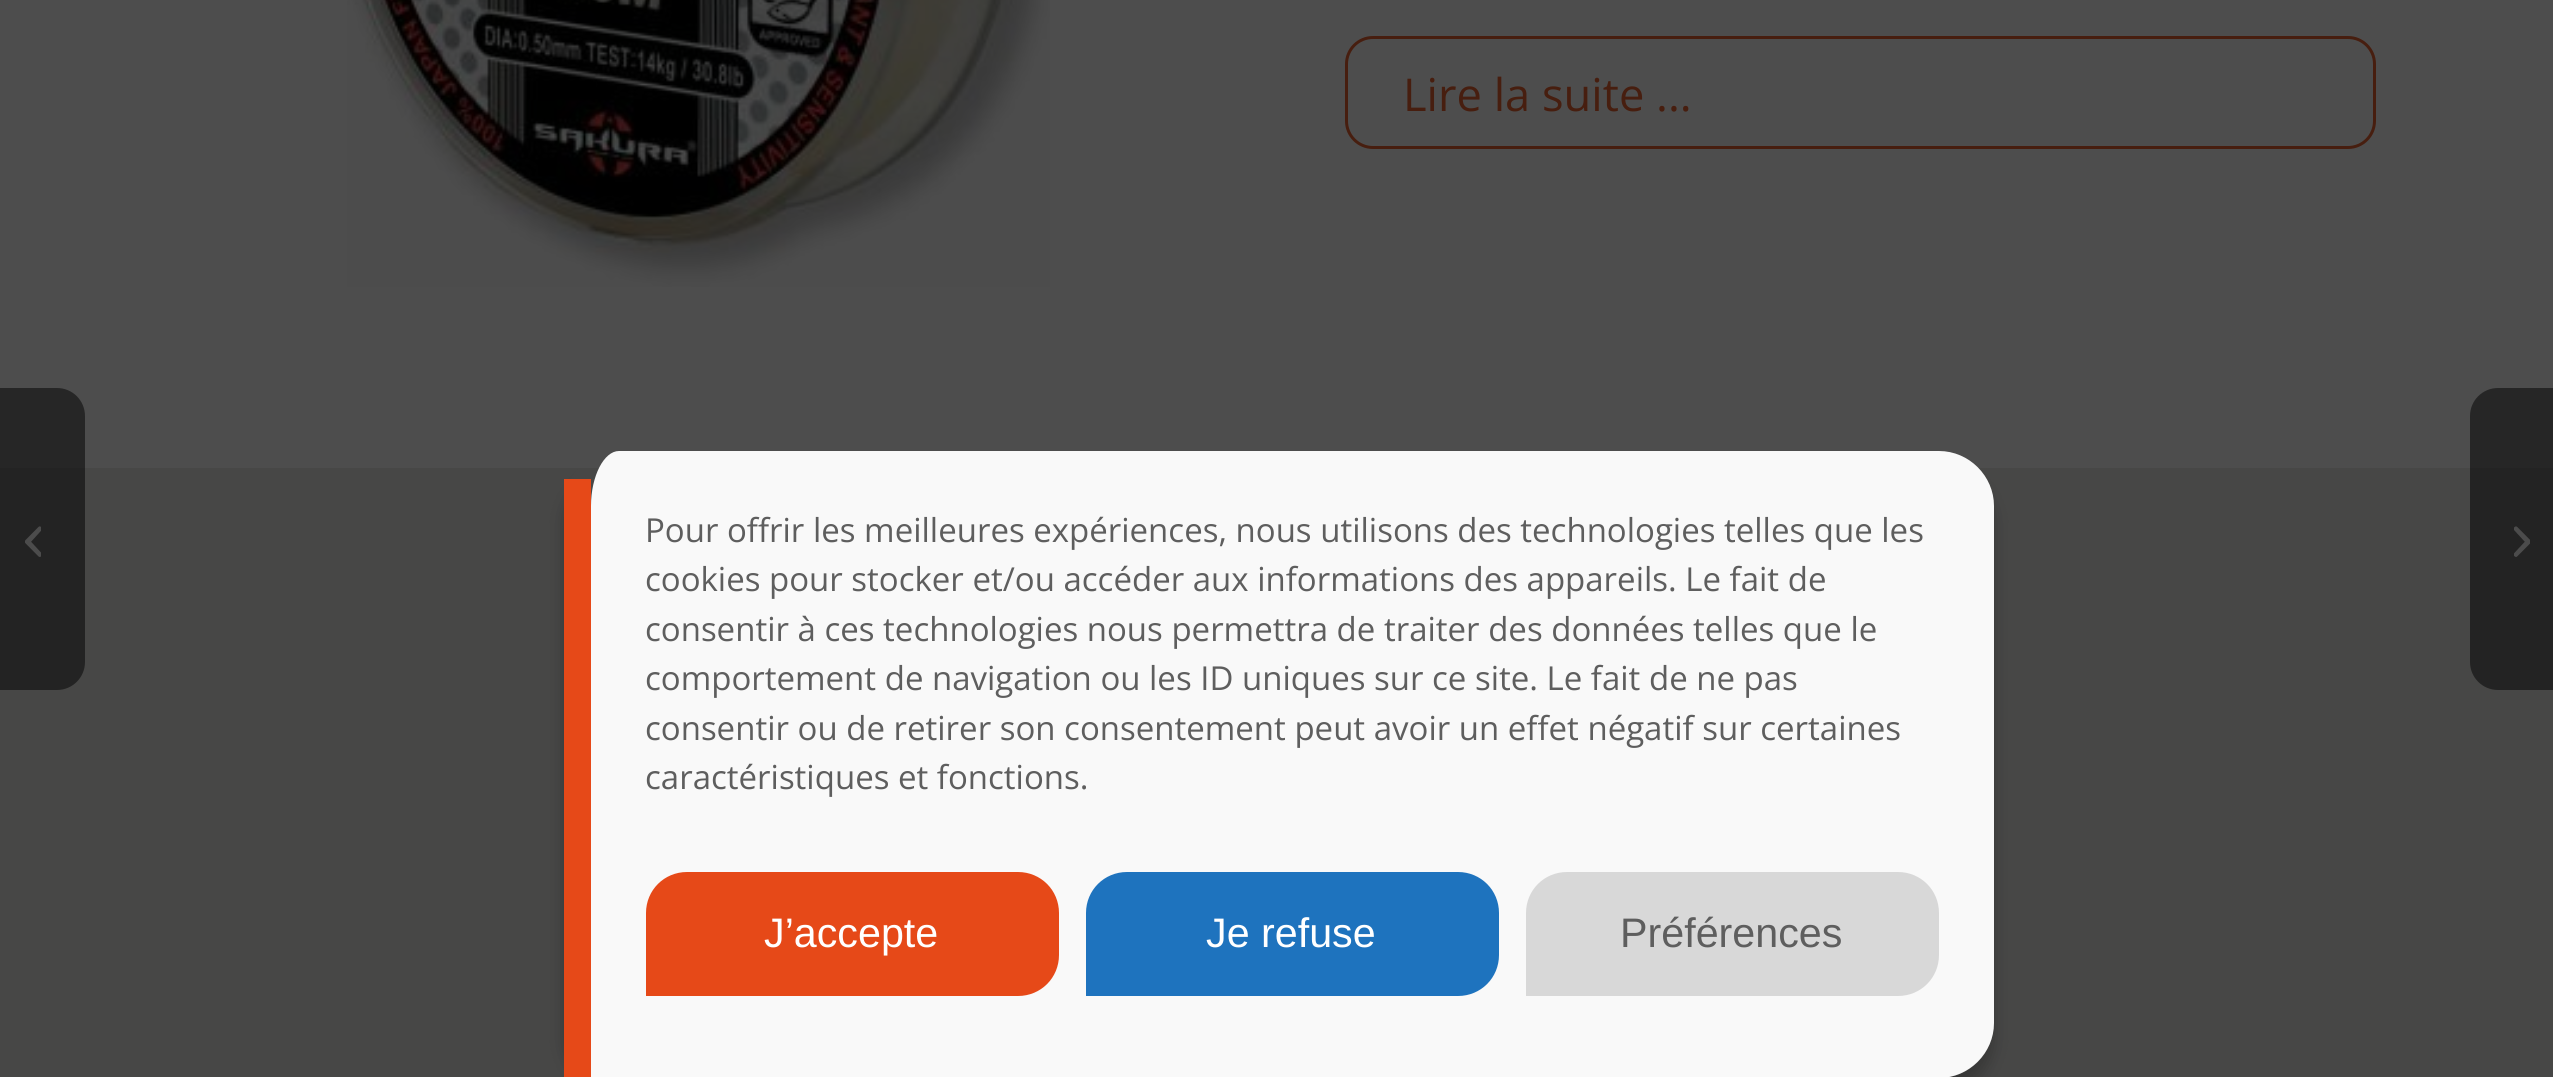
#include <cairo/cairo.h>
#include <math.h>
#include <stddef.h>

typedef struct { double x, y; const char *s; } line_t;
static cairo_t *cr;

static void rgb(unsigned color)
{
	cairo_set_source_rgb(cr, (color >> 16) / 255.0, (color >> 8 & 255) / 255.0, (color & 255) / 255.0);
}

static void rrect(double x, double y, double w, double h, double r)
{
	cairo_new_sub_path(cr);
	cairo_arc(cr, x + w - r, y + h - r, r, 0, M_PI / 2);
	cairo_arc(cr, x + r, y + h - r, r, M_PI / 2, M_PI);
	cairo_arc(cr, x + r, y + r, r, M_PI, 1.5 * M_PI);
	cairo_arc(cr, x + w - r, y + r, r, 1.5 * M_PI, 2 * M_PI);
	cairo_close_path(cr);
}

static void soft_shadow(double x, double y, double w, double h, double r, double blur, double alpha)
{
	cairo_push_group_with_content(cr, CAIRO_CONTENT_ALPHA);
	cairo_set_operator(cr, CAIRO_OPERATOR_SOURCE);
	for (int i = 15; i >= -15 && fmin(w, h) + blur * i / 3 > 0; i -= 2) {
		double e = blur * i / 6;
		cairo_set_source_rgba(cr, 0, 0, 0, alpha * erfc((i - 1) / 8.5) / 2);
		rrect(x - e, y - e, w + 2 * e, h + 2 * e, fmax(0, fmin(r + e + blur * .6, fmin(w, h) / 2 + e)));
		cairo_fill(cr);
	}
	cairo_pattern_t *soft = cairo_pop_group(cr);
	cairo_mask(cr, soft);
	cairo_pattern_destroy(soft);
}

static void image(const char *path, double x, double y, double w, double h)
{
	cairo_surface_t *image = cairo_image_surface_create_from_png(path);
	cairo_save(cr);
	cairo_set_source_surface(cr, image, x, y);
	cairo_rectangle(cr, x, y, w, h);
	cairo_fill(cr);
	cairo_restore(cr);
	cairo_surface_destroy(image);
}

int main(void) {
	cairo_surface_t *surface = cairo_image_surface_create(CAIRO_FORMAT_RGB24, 2553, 1077);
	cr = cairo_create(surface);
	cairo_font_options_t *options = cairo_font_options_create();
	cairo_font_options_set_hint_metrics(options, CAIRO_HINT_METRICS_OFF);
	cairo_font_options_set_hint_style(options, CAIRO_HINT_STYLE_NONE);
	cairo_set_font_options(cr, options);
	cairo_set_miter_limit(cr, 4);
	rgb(0x4d4d4d);
	cairo_paint(cr);
	image("img/1.png", 347, 0, 703, 287);
	rrect(1346.5, 37.5, 1028, 110, 26.5);
	rgb(0x471e0f);
	cairo_set_line_width(cr, 3);
	cairo_stroke(cr);
	rgb(0x474746);
	cairo_rectangle(cr, 0, 468, 2553, 609);
	cairo_fill(cr);
	cairo_set_source_rgba(cr, 0, 0, 0, 0.5);
	cairo_new_path(cr);
	cairo_move_to(cr, 0, 388);
	cairo_line_to(cr, 57, 388);
	cairo_curve_to(cr, 72.5, 388, 85, 400.5, 85, 416);
	cairo_line_to(cr, 85, 662);
	cairo_curve_to(cr, 85, 677.5, 72.5, 690, 57, 690);
	cairo_line_to(cr, 0, 690);
	cairo_close_path(cr);
	cairo_fill(cr);
	image("img/2.png", 25, 526, 16, 31);
	cairo_new_path(cr);
	cairo_move_to(cr, 2498, 388);
	cairo_line_to(cr, 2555, 388);
	cairo_line_to(cr, 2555, 690);
	cairo_line_to(cr, 2498, 690);
	cairo_curve_to(cr, 2482.5, 690, 2470, 677.5, 2470, 662);
	cairo_line_to(cr, 2470, 416);
	cairo_curve_to(cr, 2470, 400.5, 2482.5, 388, 2498, 388);
	cairo_close_path(cr);
	cairo_fill(cr);
	image("img/3.png", 2514, 526, 16, 31);
	cairo_save(cr);
	cairo_set_fill_rule(cr, CAIRO_FILL_RULE_EVEN_ODD);
	cairo_new_path(cr);
	cairo_move_to(cr, 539, 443);
	cairo_line_to(cr, 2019, 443);
	cairo_line_to(cr, 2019, 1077);
	cairo_line_to(cr, 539, 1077);
	cairo_close_path(cr);
	cairo_move_to(cr, 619, 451);
	cairo_line_to(cr, 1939, 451);
	cairo_curve_to(cr, 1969.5, 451, 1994, 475.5, 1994, 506);
	cairo_line_to(cr, 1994, 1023);
	cairo_curve_to(cr, 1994, 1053.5, 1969.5, 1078, 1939, 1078);
	cairo_line_to(cr, 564, 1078);
	cairo_line_to(cr, 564, 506);
	cairo_curve_to(cr, 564, 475.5, 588.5, 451, 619, 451);
	cairo_close_path(cr);
	cairo_clip(cr);
	rgb(0x000000);
	soft_shadow(564, 468, 1430, 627, 55, 8, 0.23);
	cairo_restore(cr);
	rgb(0xf9f9f9);
	cairo_new_path(cr);
	cairo_move_to(cr, 619, 451);
	cairo_line_to(cr, 1939, 451);
	cairo_curve_to(cr, 1969, 451, 1994, 476, 1994, 506);
	cairo_line_to(cr, 1994, 1023);
	cairo_curve_to(cr, 1994, 1053, 1969, 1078, 1939, 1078);
	cairo_line_to(cr, 591, 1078);
	cairo_line_to(cr, 591, 506);
	cairo_curve_to(cr, 591, 476, 604, 451, 619, 451);
	cairo_close_path(cr);
	cairo_fill(cr);
	rgb(0xe64918);
	cairo_rectangle(cr, 564, 479, 27, 598);
	cairo_fill(cr);
	cairo_new_path(cr);
	cairo_move_to(cr, 687, 873.5);
	cairo_line_to(cr, 1018, 873.5);
	cairo_curve_to(cr, 1040, 873.5, 1057.5, 891, 1057.5, 913);
	cairo_line_to(cr, 1057.5, 955);
	cairo_curve_to(cr, 1057.5, 977, 1040, 994.5, 1018, 994.5);
	cairo_line_to(cr, 647.5, 994.5);
	cairo_line_to(cr, 647.5, 913);
	cairo_curve_to(cr, 647.5, 891, 665, 873.5, 687, 873.5);
	cairo_close_path(cr);
	cairo_fill_preserve(cr);
	cairo_stroke(cr);
	rgb(0x1e73be);
	cairo_new_path(cr);
	cairo_move_to(cr, 1127, 873.5);
	cairo_line_to(cr, 1458, 873.5);
	cairo_curve_to(cr, 1480, 873.5, 1497.5, 891, 1497.5, 913);
	cairo_line_to(cr, 1497.5, 955);
	cairo_curve_to(cr, 1497.5, 977, 1480, 994.5, 1458, 994.5);
	cairo_line_to(cr, 1087.5, 994.5);
	cairo_line_to(cr, 1087.5, 913);
	cairo_curve_to(cr, 1087.5, 891, 1105, 873.5, 1127, 873.5);
	cairo_close_path(cr);
	cairo_fill_preserve(cr);
	cairo_stroke(cr);
	rgb(0xd8d8d8);
	cairo_new_path(cr);
	cairo_move_to(cr, 1567, 873.5);
	cairo_line_to(cr, 1898, 873.5);
	cairo_curve_to(cr, 1920, 873.5, 1937.5, 891, 1937.5, 913);
	cairo_line_to(cr, 1937.5, 955);
	cairo_curve_to(cr, 1937.5, 977, 1920, 994.5, 1898, 994.5);
	cairo_line_to(cr, 1527.5, 994.5);
	cairo_line_to(cr, 1527.5, 913);
	cairo_curve_to(cr, 1527.5, 891, 1545, 873.5, 1567, 873.5);
	cairo_close_path(cr);
	cairo_fill_preserve(cr);
	cairo_stroke(cr);
	cairo_select_font_face(cr, "Open Sans", CAIRO_FONT_SLANT_NORMAL, CAIRO_FONT_WEIGHT_NORMAL);
	cairo_set_font_size(cr, 45.25);
	rgb(0x471e0f);
	cairo_move_to(cr, 1403, 111);
	cairo_show_text(cr, "Lire la suite ...");
	cairo_set_font_size(cr, 33);
	rgb(0x5e5e5e);
	{
		static const line_t items[] = {
			{645, 542, "Pour offrir les meilleures expériences, nous utilisons des technologies telles que les"},
			{645, 591, "cookies pour stocker et/ou accéder aux informations des appareils. Le fait de"},
			{645, 641, "consentir à ces technologies nous permettra de traiter des données telles que le"},
			{645, 690, "comportement de navigation ou les ID uniques sur ce site. Le fait de ne pas"},
			{645, 740, "consentir ou de retirer son consentement peut avoir un effet négatif sur certaines"},
			{645, 789, "caractéristiques et fonctions."},
		};
		for (size_t i = 0; i < sizeof items / sizeof *items; i++) {
			cairo_move_to(cr, items[i].x, items[i].y);
			cairo_show_text(cr, items[i].s);
		}
	}
	cairo_select_font_face(cr, "Liberation Sans", CAIRO_FONT_SLANT_NORMAL, CAIRO_FONT_WEIGHT_NORMAL);
	cairo_set_font_size(cr, 41.25);
	rgb(0xffffff);
	cairo_move_to(cr, 764, 947);
	cairo_show_text(cr, "J’accepte");
	cairo_move_to(cr, 1206, 947);
	cairo_show_text(cr, "Je refuse");
	rgb(0x5e5e5e);
	cairo_move_to(cr, 1620, 947);
	cairo_show_text(cr, "Préférences");
	cairo_surface_write_to_png(surface, "page.png");
	cairo_font_options_destroy(options);
	cairo_destroy(cr);
	cairo_surface_destroy(surface);
	return 0;
}
